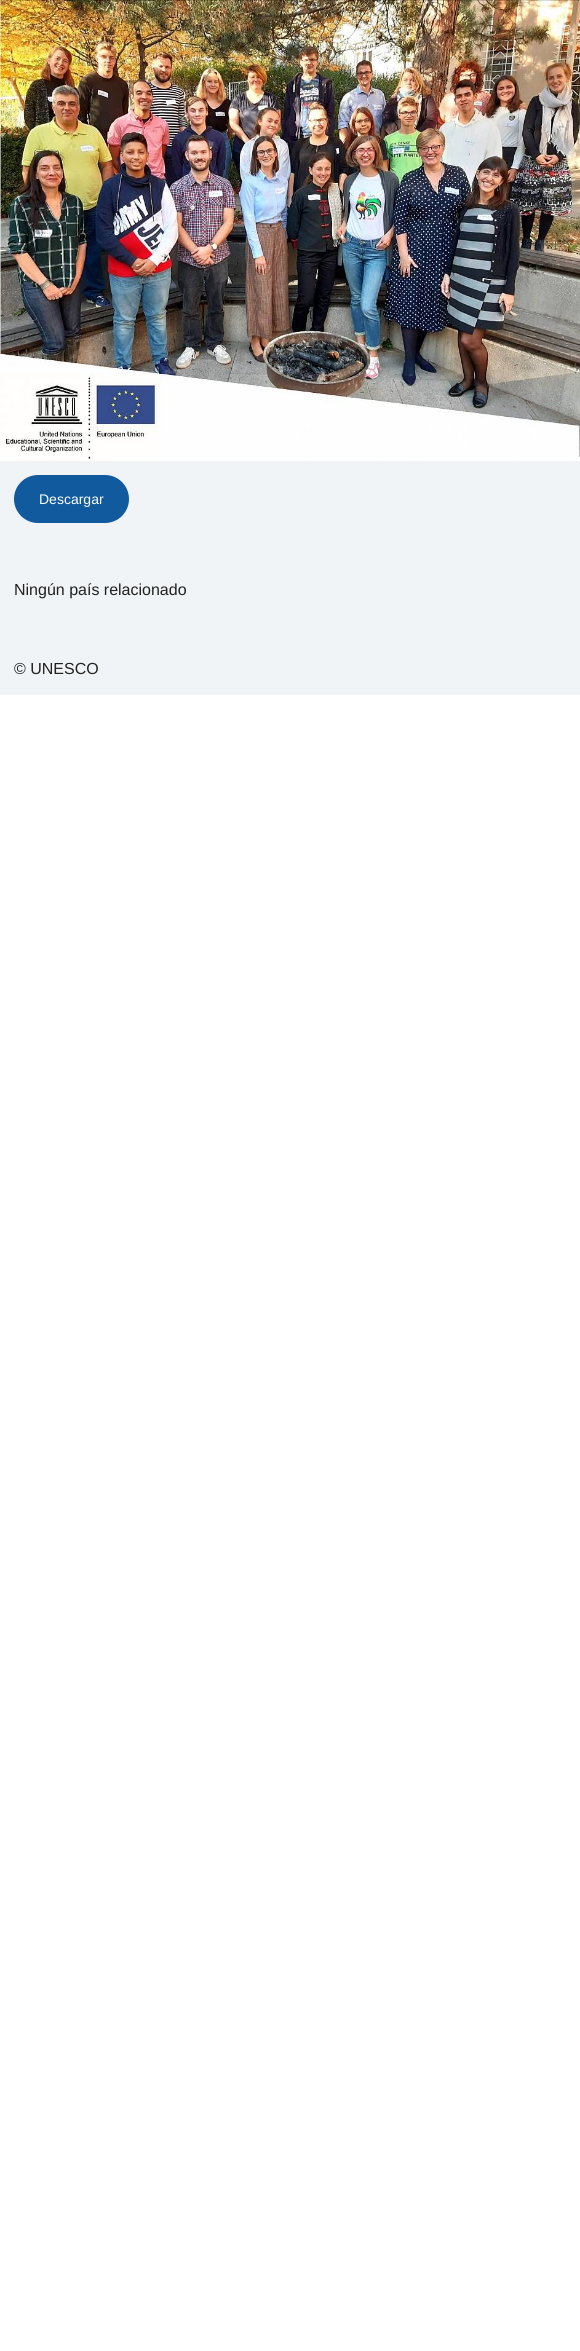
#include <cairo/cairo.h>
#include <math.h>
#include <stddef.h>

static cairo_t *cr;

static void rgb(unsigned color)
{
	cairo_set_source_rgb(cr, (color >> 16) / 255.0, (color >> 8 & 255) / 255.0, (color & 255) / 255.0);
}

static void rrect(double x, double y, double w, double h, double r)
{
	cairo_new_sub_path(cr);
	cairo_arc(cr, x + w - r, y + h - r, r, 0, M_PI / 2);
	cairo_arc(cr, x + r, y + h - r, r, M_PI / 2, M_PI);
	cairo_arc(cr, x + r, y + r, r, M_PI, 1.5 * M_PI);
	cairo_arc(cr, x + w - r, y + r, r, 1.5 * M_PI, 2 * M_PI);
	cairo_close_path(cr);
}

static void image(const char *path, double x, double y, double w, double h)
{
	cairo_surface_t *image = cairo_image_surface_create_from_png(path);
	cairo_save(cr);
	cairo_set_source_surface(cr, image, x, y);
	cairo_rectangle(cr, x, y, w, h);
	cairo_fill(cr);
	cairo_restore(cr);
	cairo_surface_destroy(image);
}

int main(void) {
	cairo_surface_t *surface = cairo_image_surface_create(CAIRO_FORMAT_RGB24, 580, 2351);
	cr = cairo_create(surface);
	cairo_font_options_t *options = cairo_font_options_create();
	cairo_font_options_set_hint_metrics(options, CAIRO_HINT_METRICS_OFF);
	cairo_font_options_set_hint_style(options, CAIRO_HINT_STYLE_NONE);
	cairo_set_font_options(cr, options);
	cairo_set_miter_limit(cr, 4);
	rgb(0xffffff);
	cairo_paint(cr);
	rgb(0xf1f4f6);
	cairo_rectangle(cr, 0, 461, 580, 234);
	cairo_fill(cr);
	image("img/1.png", 0, 0, 580, 461);
	rgb(0x115a9e);
	rrect(14, 475, 115, 48, 24);
	cairo_fill(cr);
	cairo_select_font_face(cr, "Liberation Sans", CAIRO_FONT_SLANT_NORMAL, CAIRO_FONT_WEIGHT_NORMAL);
	cairo_set_font_size(cr, 14);
	rgb(0xffffff);
	cairo_move_to(cr, 39, 504);
	cairo_show_text(cr, "Descargar");
	cairo_set_font_size(cr, 16);
	rgb(0x212121);
	cairo_move_to(cr, 14, 595);
	cairo_show_text(cr, "Ningún país relacionado");
	cairo_move_to(cr, 14, 674);
	cairo_show_text(cr, "© UNESCO");
	cairo_surface_write_to_png(surface, "page.png");
	cairo_font_options_destroy(options);
	cairo_destroy(cr);
	cairo_surface_destroy(surface);
	return 0;
}
